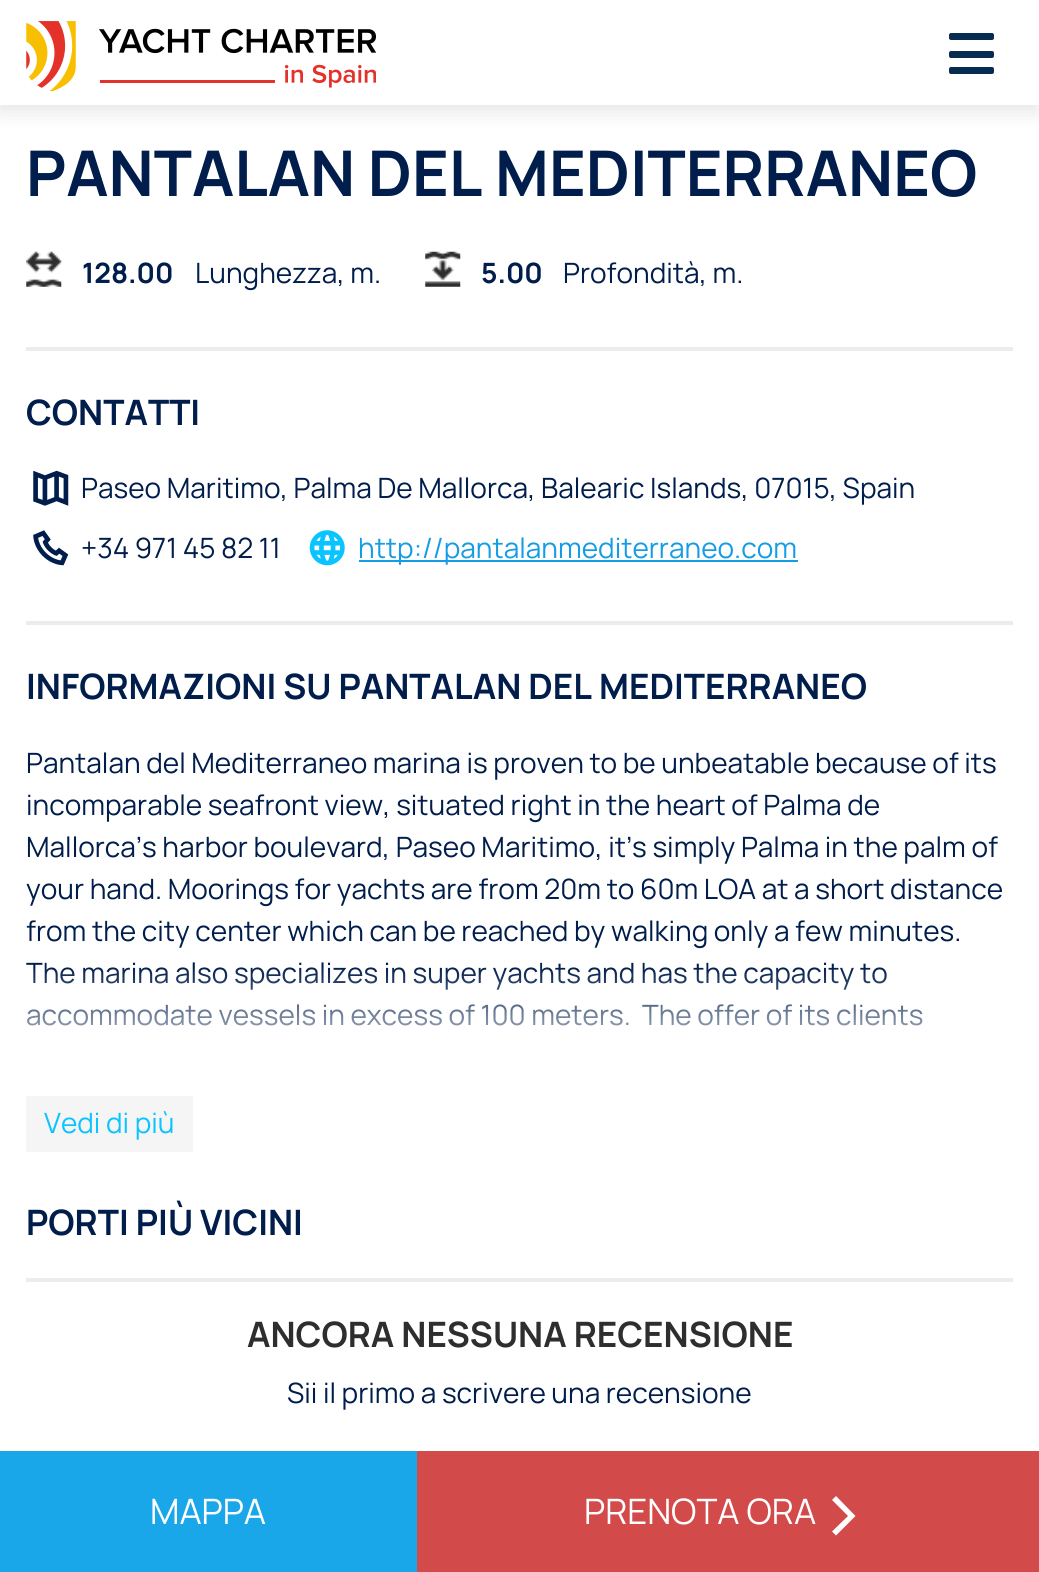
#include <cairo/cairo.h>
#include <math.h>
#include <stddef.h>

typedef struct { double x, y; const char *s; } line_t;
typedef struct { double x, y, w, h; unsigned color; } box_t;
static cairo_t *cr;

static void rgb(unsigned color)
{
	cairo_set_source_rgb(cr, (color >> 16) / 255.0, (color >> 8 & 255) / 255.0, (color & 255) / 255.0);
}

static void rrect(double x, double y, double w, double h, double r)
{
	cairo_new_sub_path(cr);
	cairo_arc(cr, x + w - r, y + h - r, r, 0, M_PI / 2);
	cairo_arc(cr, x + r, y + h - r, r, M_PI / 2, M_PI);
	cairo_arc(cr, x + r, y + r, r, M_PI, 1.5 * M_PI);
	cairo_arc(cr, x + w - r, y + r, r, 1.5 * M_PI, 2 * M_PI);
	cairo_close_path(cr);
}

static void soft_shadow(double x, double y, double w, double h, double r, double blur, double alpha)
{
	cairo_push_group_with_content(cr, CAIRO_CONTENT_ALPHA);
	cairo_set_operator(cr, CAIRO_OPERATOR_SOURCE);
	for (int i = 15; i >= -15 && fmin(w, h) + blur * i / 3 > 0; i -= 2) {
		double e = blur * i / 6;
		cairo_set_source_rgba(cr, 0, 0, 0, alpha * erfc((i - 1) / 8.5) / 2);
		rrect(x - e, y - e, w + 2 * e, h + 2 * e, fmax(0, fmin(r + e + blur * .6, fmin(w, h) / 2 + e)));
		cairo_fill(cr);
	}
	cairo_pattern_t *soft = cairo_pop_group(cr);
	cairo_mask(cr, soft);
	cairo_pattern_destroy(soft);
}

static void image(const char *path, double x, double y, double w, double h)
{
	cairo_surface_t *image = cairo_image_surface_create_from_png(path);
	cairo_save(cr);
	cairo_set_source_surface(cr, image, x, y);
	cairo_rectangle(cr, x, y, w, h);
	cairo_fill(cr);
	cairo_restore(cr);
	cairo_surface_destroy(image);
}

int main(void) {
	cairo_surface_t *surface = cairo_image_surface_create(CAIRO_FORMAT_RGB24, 1039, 1572);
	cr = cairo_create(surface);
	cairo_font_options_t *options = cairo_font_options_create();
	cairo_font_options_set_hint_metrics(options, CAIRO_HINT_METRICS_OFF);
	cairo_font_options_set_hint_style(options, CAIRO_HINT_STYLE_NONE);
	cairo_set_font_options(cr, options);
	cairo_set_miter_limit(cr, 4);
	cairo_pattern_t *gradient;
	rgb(0xffffff);
	cairo_paint(cr);
	rgb(0x000000);
	soft_shadow(-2, 7, 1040, 105, 0, 9.5, 0.1);
	rgb(0xffffff);
	cairo_rectangle(cr, 0, 0, 1039, 105);
	cairo_fill(cr);
	image("img/1.png", 26, 21, 350, 70);
	rgb(0x072b51);
	rrect(949, 33, 45, 7, 2);
	cairo_fill(cr);
	rrect(949, 51, 45, 7, 2);
	cairo_fill(cr);
	rrect(949, 67, 45, 7, 2);
	cairo_fill(cr);
	rgb(0xececec);
	cairo_rectangle(cr, 26, 347, 987, 4);
	cairo_fill(cr);
	image("img/2.png", 26, 251, 36, 36);
	image("img/3.png", 425, 251, 36, 36);
	cairo_rectangle(cr, 26, 621, 987, 4);
	cairo_fill(cr);
	image("img/4.png", 33, 470, 36, 36);
	image("img/5.png", 33, 530, 36, 36);
	image("img/6.png", 309, 530, 36, 36);
	{
		static const box_t items[] = {
			{359, 560, 439, 2, 0x169ce4},
			{26, 1096, 167, 56, 0xf5f5f5},
			{26, 1278, 987, 4, 0xececec},
			{0, 1451, 417, 121, 0x1aa7ea},
			{417, 1451, 622, 121, 0xd34a4a},
		};
		for (size_t i = 0; i < sizeof items / sizeof *items; i++) {
			rgb(items[i].color);
			cairo_rectangle(cr, items[i].x, items[i].y, items[i].w, items[i].h);
			cairo_fill(cr);
		}
	}
	rgb(0xffffff);
	cairo_new_path(cr);
	cairo_move_to(cr, 832, 1531.5);
	cairo_line_to(cr, 848, 1516);
	cairo_line_to(cr, 832, 1500);
	cairo_line_to(cr, 836, 1496);
	cairo_line_to(cr, 855.5, 1516);
	cairo_line_to(cr, 836, 1535.5);
	cairo_close_path(cr);
	cairo_move_to(cr, 824, 1496);
	cairo_close_path(cr);
	cairo_move_to(cr, 824, 1535.5);
	cairo_close_path(cr);
	cairo_move_to(cr, 863.5, 1535.5);
	cairo_close_path(cr);
	cairo_move_to(cr, 863.5, 1496);
	cairo_close_path(cr);
	cairo_fill(cr);
	cairo_select_font_face(cr, "Manrope", CAIRO_FONT_SLANT_NORMAL, CAIRO_FONT_WEIGHT_BOLD);
	cairo_set_font_size(cr, 63);
	rgb(0x001d4b);
	cairo_move_to(cr, 26, 196);
	cairo_show_text(cr, "PANTALAN DEL MEDITERRANEO");
	cairo_set_font_size(cr, 28);
	cairo_move_to(cr, 82, 283);
	cairo_show_text(cr, "128.00");
	cairo_select_font_face(cr, "Manrope", CAIRO_FONT_SLANT_NORMAL, CAIRO_FONT_WEIGHT_NORMAL);
	cairo_move_to(cr, 195, 283);
	cairo_show_text(cr, "Lunghezza, m.");
	cairo_select_font_face(cr, "Manrope", CAIRO_FONT_SLANT_NORMAL, CAIRO_FONT_WEIGHT_BOLD);
	cairo_move_to(cr, 481, 283);
	cairo_show_text(cr, "5.00");
	cairo_select_font_face(cr, "Manrope", CAIRO_FONT_SLANT_NORMAL, CAIRO_FONT_WEIGHT_NORMAL);
	cairo_move_to(cr, 563, 283);
	cairo_show_text(cr, "Profondità, m.");
	cairo_select_font_face(cr, "Manrope", CAIRO_FONT_SLANT_NORMAL, CAIRO_FONT_WEIGHT_BOLD);
	cairo_set_font_size(cr, 35);
	cairo_move_to(cr, 26, 425);
	cairo_show_text(cr, "CONTATTI");
	cairo_select_font_face(cr, "Manrope", CAIRO_FONT_SLANT_NORMAL, CAIRO_FONT_WEIGHT_NORMAL);
	cairo_set_font_size(cr, 28);
	cairo_move_to(cr, 81, 498);
	cairo_show_text(cr, "Paseo Maritimo, Palma De Mallorca, Balearic Islands, 07015, Spain");
	cairo_move_to(cr, 81, 558);
	cairo_show_text(cr, "+34 971 45 82 11");
	rgb(0x169ce4);
	cairo_move_to(cr, 358, 558);
	cairo_show_text(cr, "http://pantalanmediterraneo.com");
	cairo_select_font_face(cr, "Manrope", CAIRO_FONT_SLANT_NORMAL, CAIRO_FONT_WEIGHT_BOLD);
	cairo_set_font_size(cr, 35);
	rgb(0x001d4b);
	cairo_move_to(cr, 26, 699);
	cairo_show_text(cr, "INFORMAZIONI SU PANTALAN DEL MEDITERRANEO");
	cairo_select_font_face(cr, "Manrope", CAIRO_FONT_SLANT_NORMAL, CAIRO_FONT_WEIGHT_NORMAL);
	cairo_set_font_size(cr, 28);
	{
		static const line_t items[] = {
			{26, 773, "Pantalan del Mediterraneo marina is proven to be unbeatable because of its"},
			{26, 815, "incomparable seafront view, situated right in the heart of Palma de"},
			{26, 857, "Mallorca’s harbor boulevard, Paseo Maritimo, it’s simply Palma in the palm of"},
			{26, 899, "your hand. Moorings for yachts are from 20m to 60m LOA at a short distance"},
			{26, 941, "from the city center which can be reached by walking only a few minutes."},
			{26, 983, "The marina also specializes in super yachts and has the capacity to"},
			{26, 1025, "accommodate vessels in excess of 100 meters.  The offer of its clients"},
		};
		for (size_t i = 0; i < sizeof items / sizeof *items; i++) {
			cairo_move_to(cr, items[i].x, items[i].y);
			cairo_show_text(cr, items[i].s);
		}
	}
	gradient = cairo_pattern_create_linear(520, 966, 520, 1078);
	cairo_pattern_add_color_stop_rgba(gradient, 0, 1, 1, 1, 0);
	cairo_pattern_add_color_stop_rgba(gradient, 0.25, 1, 1, 1, 0.25);
	cairo_pattern_add_color_stop_rgba(gradient, 0.5, 1, 1, 1, 0.5);
	cairo_pattern_add_color_stop_rgba(gradient, 0.75, 1, 1, 1, 0.75);
	cairo_pattern_add_color_stop_rgba(gradient, 1, 1, 1, 1, 1);
	cairo_set_source(cr, gradient);
	cairo_pattern_destroy(gradient);
	cairo_rectangle(cr, 27, 968, 896, 58);
	cairo_fill(cr);
	rgb(0x09c4ff);
	cairo_move_to(cr, 44, 1133);
	cairo_show_text(cr, "Vedi di più");
	cairo_select_font_face(cr, "Manrope", CAIRO_FONT_SLANT_NORMAL, CAIRO_FONT_WEIGHT_BOLD);
	cairo_set_font_size(cr, 35);
	rgb(0x001d4b);
	cairo_move_to(cr, 26, 1235);
	cairo_show_text(cr, "PORTI PIÙ VICINI");
	rgb(0x2e2e2e);
	cairo_move_to(cr, 247, 1347);
	cairo_show_text(cr, "ANCORA NESSUNA RECENSIONE");
	cairo_select_font_face(cr, "Manrope", CAIRO_FONT_SLANT_NORMAL, CAIRO_FONT_WEIGHT_NORMAL);
	cairo_set_font_size(cr, 28);
	rgb(0x001d4b);
	cairo_move_to(cr, 287, 1403);
	cairo_show_text(cr, "Sii il primo a scrivere una recensione");
	cairo_set_font_size(cr, 35);
	rgb(0xffffff);
	cairo_move_to(cr, 150, 1524);
	cairo_show_text(cr, "MAPPA");
	cairo_move_to(cr, 584, 1524);
	cairo_show_text(cr, "PRENOTA ORA");
	cairo_surface_write_to_png(surface, "page.png");
	cairo_font_options_destroy(options);
	cairo_destroy(cr);
	cairo_surface_destroy(surface);
	return 0;
}
